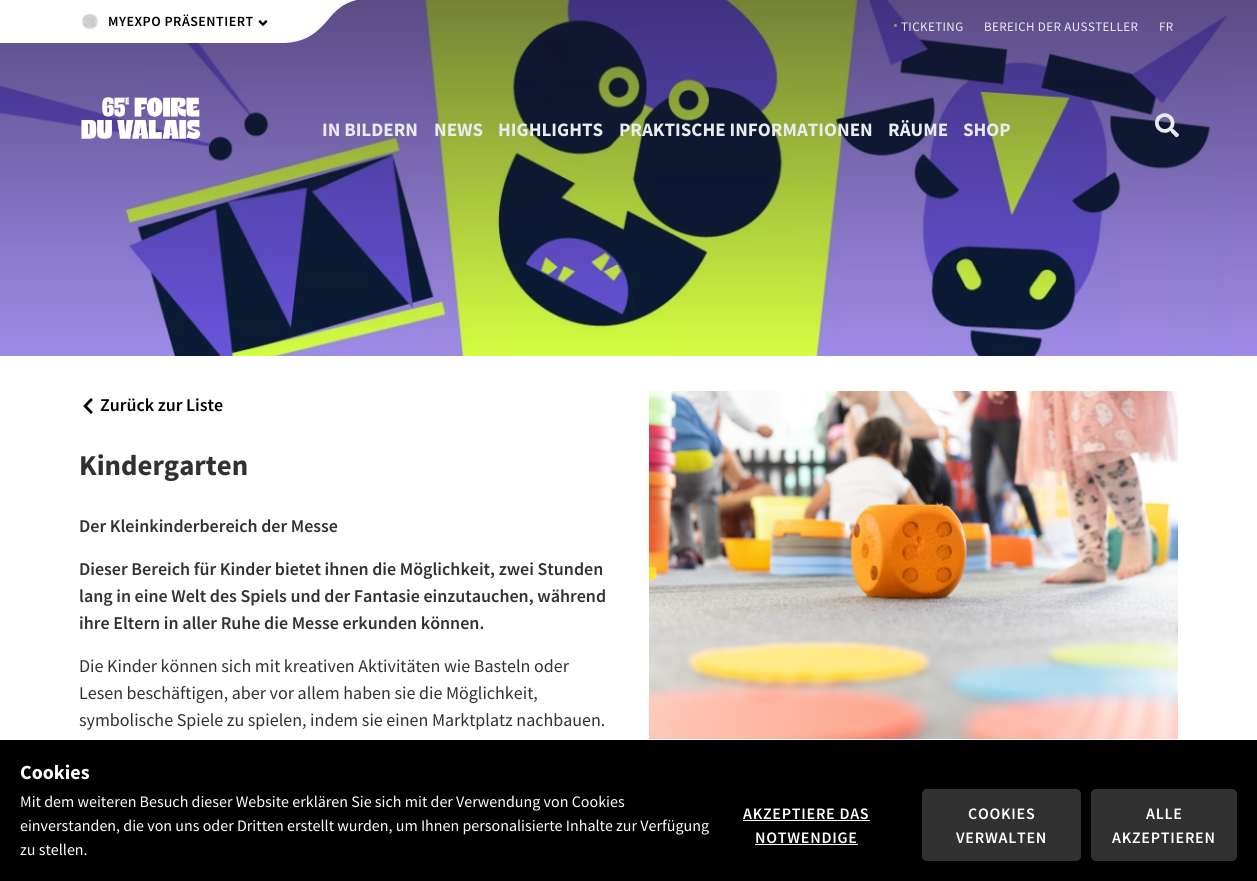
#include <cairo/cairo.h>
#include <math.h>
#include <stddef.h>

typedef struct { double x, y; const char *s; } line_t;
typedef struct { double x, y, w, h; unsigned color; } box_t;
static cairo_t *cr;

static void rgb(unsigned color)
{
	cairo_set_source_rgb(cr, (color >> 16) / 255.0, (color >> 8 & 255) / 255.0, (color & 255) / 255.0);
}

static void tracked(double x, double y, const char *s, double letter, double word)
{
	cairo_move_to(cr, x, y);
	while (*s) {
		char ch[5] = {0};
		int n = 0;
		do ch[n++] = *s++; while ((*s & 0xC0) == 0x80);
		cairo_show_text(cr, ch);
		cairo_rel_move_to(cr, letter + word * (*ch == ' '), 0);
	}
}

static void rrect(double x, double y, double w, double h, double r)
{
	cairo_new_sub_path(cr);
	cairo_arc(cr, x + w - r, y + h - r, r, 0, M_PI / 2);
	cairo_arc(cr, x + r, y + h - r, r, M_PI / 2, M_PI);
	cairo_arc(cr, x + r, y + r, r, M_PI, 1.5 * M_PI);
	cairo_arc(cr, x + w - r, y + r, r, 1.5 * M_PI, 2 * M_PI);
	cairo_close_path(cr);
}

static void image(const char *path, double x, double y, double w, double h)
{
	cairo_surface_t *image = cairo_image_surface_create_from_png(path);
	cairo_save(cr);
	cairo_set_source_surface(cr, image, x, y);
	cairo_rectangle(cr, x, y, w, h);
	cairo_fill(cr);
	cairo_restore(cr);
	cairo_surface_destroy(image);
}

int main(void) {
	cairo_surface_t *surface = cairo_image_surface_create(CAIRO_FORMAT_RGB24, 1257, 881);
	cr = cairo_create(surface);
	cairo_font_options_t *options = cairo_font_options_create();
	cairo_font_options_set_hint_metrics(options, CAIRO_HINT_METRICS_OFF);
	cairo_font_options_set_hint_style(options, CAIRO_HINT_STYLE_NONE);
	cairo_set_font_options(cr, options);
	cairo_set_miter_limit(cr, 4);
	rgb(0xffffff);
	cairo_paint(cr);
	image("img/5.png", 0, 0, 1257, 356);
	rgb(0xffffff);
	cairo_new_path(cr);
	cairo_move_to(cr, 356, -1);
	cairo_line_to(cr, 363, -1);
	cairo_curve_to(cr, 344, 1, 335, 11, 327, 21);
	cairo_curve_to(cr, 317, 32, 307, 42, 284, 43);
	cairo_line_to(cr, 278, 43);
	cairo_line_to(cr, 280, -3);
	cairo_close_path(cr);
	cairo_fill(cr);
	cairo_rectangle(cr, 0, 0, 280, 43);
	cairo_fill(cr);
	image("img/1.png", 82, 13, 16, 17);
	image("img/2.png", 258, 20, 10, 6);
	rgb(0xa9973e);
	cairo_arc(cr, 895.5, 25.5, 1.5, 0, 2 * M_PI);
	cairo_fill(cr);
	image("img/3.png", 81, 97, 120, 43);
	image("img/4.png", 1155, 113, 24, 25);
	image("img/6.png", 83, 398, 10, 16);
	image("img/7.png", 649, 391, 529, 348);
	{
		static const box_t items[] = {
			{0, 740, 1257, 141, 0x000000},
			{743, 820, 127, 1, 0xffffff},
			{755, 844, 103, 1, 0xffffff},
		};
		for (size_t i = 0; i < sizeof items / sizeof *items; i++) {
			rgb(items[i].color);
			cairo_rectangle(cr, items[i].x, items[i].y, items[i].w, items[i].h);
			cairo_fill(cr);
		}
	}
	rgb(0x313131);
	rrect(922, 789, 159, 72, 5);
	cairo_fill(cr);
	rrect(1091, 789, 146, 72, 5);
	cairo_fill(cr);
	cairo_select_font_face(cr, "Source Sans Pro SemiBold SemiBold", CAIRO_FONT_SLANT_NORMAL, CAIRO_FONT_WEIGHT_NORMAL);
	cairo_set_font_size(cr, 14);
	rgb(0x000000);
	tracked(108, 26, "MYEXPO PRÄSENTIERT", 0.5, 0);
	cairo_select_font_face(cr, "Source Sans Pro", CAIRO_FONT_SLANT_NORMAL, CAIRO_FONT_WEIGHT_NORMAL);
	cairo_set_font_size(cr, 13);
	rgb(0xe9ecef);
	{
		static const line_t items[] = {
			{901, 31, "TICKETING"},
			{984, 31, "BEREICH DER AUSSTELLER"},
			{1159, 31, "FR"},
		};
		for (size_t i = 0; i < sizeof items / sizeof *items; i++) {
			tracked(items[i].x, items[i].y, items[i].s, 0.4, 0);
		}
	}
	cairo_select_font_face(cr, "Source Sans Pro", CAIRO_FONT_SLANT_NORMAL, CAIRO_FONT_WEIGHT_BOLD);
	cairo_set_font_size(cr, 19);
	{
		static const line_t items[] = {
			{322, 136, "IN BILDERN"},
			{434, 136, "NEWS"},
			{498, 136, "HIGHLIGHTS"},
			{619, 136, "PRAKTISCHE INFORMATIONEN"},
			{888, 136, "RÄUME"},
			{963, 136, "SHOP"},
		};
		for (size_t i = 0; i < sizeof items / sizeof *items; i++) {
			cairo_move_to(cr, items[i].x, items[i].y);
			cairo_show_text(cr, items[i].s);
		}
	}
	cairo_select_font_face(cr, "Source Sans Pro SemiBold SemiBold", CAIRO_FONT_SLANT_NORMAL, CAIRO_FONT_WEIGHT_NORMAL);
	cairo_set_font_size(cr, 18);
	rgb(0x000000);
	cairo_move_to(cr, 100, 411);
	cairo_show_text(cr, "Zurück zur Liste");
	cairo_select_font_face(cr, "Source Sans Pro", CAIRO_FONT_SLANT_NORMAL, CAIRO_FONT_WEIGHT_BOLD);
	cairo_set_font_size(cr, 28.75);
	rgb(0x313131);
	cairo_move_to(cr, 79, 475);
	cairo_show_text(cr, "Kindergarten");
	cairo_select_font_face(cr, "Source Sans Pro SemiBold SemiBold", CAIRO_FONT_SLANT_NORMAL, CAIRO_FONT_WEIGHT_NORMAL);
	cairo_set_font_size(cr, 18);
	{
		static const line_t items[] = {
			{79, 532, "Der Kleinkinderbereich der Messe"},
			{79, 575, "Dieser Bereich für Kinder bietet ihnen die Möglichkeit, zwei Stunden"},
			{79, 602, "lang in eine Welt des Spiels und der Fantasie einzutauchen, während"},
			{79, 629, "ihre Eltern in aller Ruhe die Messe erkunden können."},
		};
		for (size_t i = 0; i < sizeof items / sizeof *items; i++) {
			cairo_move_to(cr, items[i].x, items[i].y);
			cairo_show_text(cr, items[i].s);
		}
	}
	cairo_select_font_face(cr, "Source Sans Pro", CAIRO_FONT_SLANT_NORMAL, CAIRO_FONT_WEIGHT_NORMAL);
	{
		static const line_t items[] = {
			{79, 672, "Die Kinder können sich mit kreativen Aktivitäten wie Basteln oder"},
			{79, 699, "Lesen beschäftigen, aber vor allem haben sie die Möglichkeit,"},
			{79, 726, "symbolische Spiele zu spielen, indem sie einen Marktplatz nachbauen."},
		};
		for (size_t i = 0; i < sizeof items / sizeof *items; i++) {
			cairo_move_to(cr, items[i].x, items[i].y);
			cairo_show_text(cr, items[i].s);
		}
	}
	cairo_select_font_face(cr, "Source Sans Pro", CAIRO_FONT_SLANT_NORMAL, CAIRO_FONT_WEIGHT_BOLD);
	cairo_set_font_size(cr, 20);
	rgb(0xffffff);
	cairo_move_to(cr, 20, 779);
	cairo_show_text(cr, "Cookies");
	cairo_select_font_face(cr, "Source Sans Pro", CAIRO_FONT_SLANT_NORMAL, CAIRO_FONT_WEIGHT_NORMAL);
	cairo_set_font_size(cr, 16);
	{
		static const line_t items[] = {
			{20, 807, "Mit dem weiteren Besuch dieser Website erklären Sie sich mit der Verwendung von Cookies"},
			{20, 831, "einverstanden, die von uns oder Dritten erstellt wurden, um Ihnen personalisierte Inhalte zur Verfügung"},
			{20, 855, "zu stellen."},
		};
		for (size_t i = 0; i < sizeof items / sizeof *items; i++) {
			cairo_move_to(cr, items[i].x, items[i].y);
			cairo_show_text(cr, items[i].s);
		}
	}
	cairo_select_font_face(cr, "Source Sans Pro SemiBold SemiBold", CAIRO_FONT_SLANT_NORMAL, CAIRO_FONT_WEIGHT_NORMAL);
	{
		static const line_t items[] = {
			{743, 819, "AKZEPTIERE DAS"},
			{755, 843, "NOTWENDIGE"},
			{968, 819, "COOKIES"},
			{956, 843, "VERWALTEN"},
			{1146, 819, "ALLE"},
			{1112, 843, "AKZEPTIEREN"},
		};
		for (size_t i = 0; i < sizeof items / sizeof *items; i++) {
			tracked(items[i].x, items[i].y, items[i].s, 0.75, 0);
		}
	}
	cairo_surface_write_to_png(surface, "page.png");
	cairo_font_options_destroy(options);
	cairo_destroy(cr);
	cairo_surface_destroy(surface);
	return 0;
}
